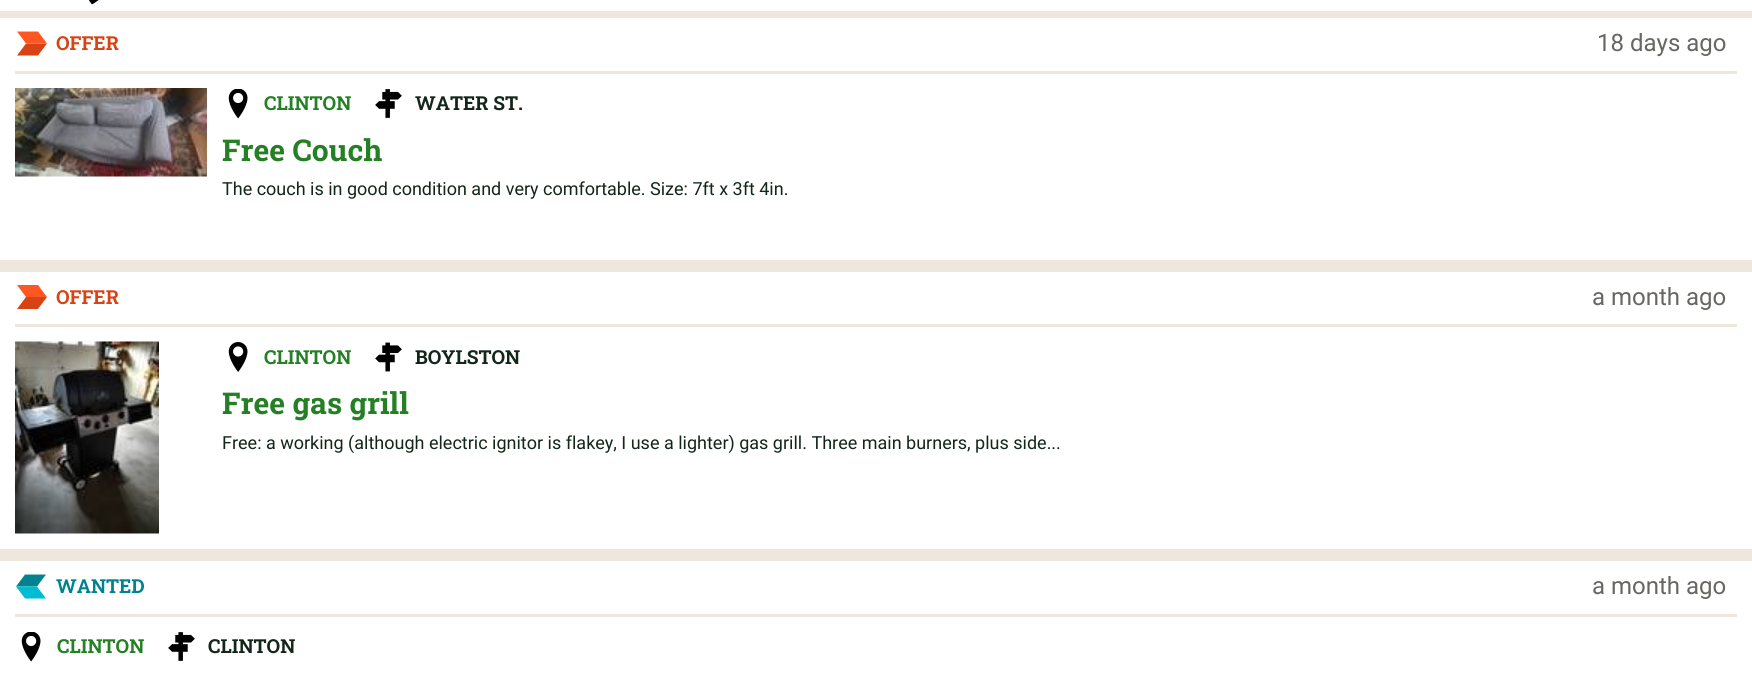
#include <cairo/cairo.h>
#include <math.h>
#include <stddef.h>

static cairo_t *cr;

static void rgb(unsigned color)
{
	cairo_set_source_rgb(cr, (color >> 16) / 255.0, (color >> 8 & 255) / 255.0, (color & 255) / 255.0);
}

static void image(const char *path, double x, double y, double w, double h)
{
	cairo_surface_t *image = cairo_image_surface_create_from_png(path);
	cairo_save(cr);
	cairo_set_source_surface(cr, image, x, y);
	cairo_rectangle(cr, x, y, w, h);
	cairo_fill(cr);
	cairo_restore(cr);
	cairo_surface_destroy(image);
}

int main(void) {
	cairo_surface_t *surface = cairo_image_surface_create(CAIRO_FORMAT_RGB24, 1752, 681);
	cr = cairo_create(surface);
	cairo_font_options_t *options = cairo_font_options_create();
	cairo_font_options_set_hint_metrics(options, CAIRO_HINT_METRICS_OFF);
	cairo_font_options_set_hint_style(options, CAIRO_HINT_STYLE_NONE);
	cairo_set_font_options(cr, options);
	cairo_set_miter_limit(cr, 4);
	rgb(0xede7de);
	cairo_paint(cr);
	rgb(0xffffff);
	cairo_rectangle(cr, 0, 0, 1752, 11);
	cairo_fill(cr);
	image("img/1.png", 88, 0, 11, 5);
	cairo_rectangle(cr, 0, 18, 1752, 242);
	cairo_fill(cr);
	rgb(0xede7de);
	cairo_rectangle(cr, 15, 71, 1722, 3);
	cairo_fill(cr);
	rgb(0xd84315);
	cairo_new_path(cr);
	cairo_move_to(cr, 17, 55.5);
	cairo_line_to(cr, 38, 55.5);
	cairo_line_to(cr, 47, 43.5);
	cairo_line_to(cr, 26, 43.5);
	cairo_close_path(cr);
	cairo_fill(cr);
	rgb(0xff5722);
	cairo_new_path(cr);
	cairo_move_to(cr, 38, 31.5);
	cairo_line_to(cr, 17, 31.5);
	cairo_line_to(cr, 26, 43.5);
	cairo_line_to(cr, 47, 43.5);
	cairo_close_path(cr);
	cairo_fill(cr);
	image("img/2.png", 15, 88, 192, 89);
	image("img/3.png", 228, 89, 20, 30);
	image("img/4.png", 375, 89, 27, 29);
	rgb(0xffffff);
	cairo_rectangle(cr, 0, 272, 1752, 277);
	cairo_fill(cr);
	rgb(0xede7de);
	cairo_rectangle(cr, 15, 324, 1722, 3);
	cairo_fill(cr);
	rgb(0xff5722);
	cairo_new_path(cr);
	cairo_move_to(cr, 38, 285);
	cairo_line_to(cr, 17, 285);
	cairo_line_to(cr, 26, 297);
	cairo_line_to(cr, 47, 297);
	cairo_close_path(cr);
	cairo_fill(cr);
	rgb(0xd84315);
	cairo_new_path(cr);
	cairo_move_to(cr, 17, 309);
	cairo_line_to(cr, 38, 309);
	cairo_line_to(cr, 47, 297);
	cairo_line_to(cr, 26, 297);
	cairo_close_path(cr);
	cairo_fill(cr);
	image("img/5.png", 15, 341, 144, 193);
	image("img/6.png", 228, 342, 20, 30);
	image("img/7.png", 375, 342, 27, 30);
	rgb(0xffffff);
	cairo_rectangle(cr, 0, 561, 1752, 120);
	cairo_fill(cr);
	rgb(0xede7de);
	cairo_rectangle(cr, 15, 614, 1722, 3);
	cairo_fill(cr);
	rgb(0x00838f);
	cairo_new_path(cr);
	cairo_move_to(cr, 46, 574.5);
	cairo_line_to(cr, 25, 574.5);
	cairo_line_to(cr, 16, 586.5);
	cairo_line_to(cr, 37, 586.5);
	cairo_close_path(cr);
	cairo_fill(cr);
	rgb(0x00bcd4);
	cairo_new_path(cr);
	cairo_move_to(cr, 46, 598.5);
	cairo_line_to(cr, 37, 586.5);
	cairo_line_to(cr, 16, 586.5);
	cairo_line_to(cr, 25, 598.5);
	cairo_close_path(cr);
	cairo_fill(cr);
	image("img/3.png", 21, 632, 20, 30);
	image("img/4.png", 168, 632, 27, 29);
	cairo_select_font_face(cr, "Roboto Slab", CAIRO_FONT_SLANT_NORMAL, CAIRO_FONT_WEIGHT_BOLD);
	cairo_set_font_size(cr, 19.25);
	rgb(0xd84315);
	cairo_move_to(cr, 56, 50);
	cairo_show_text(cr, "OFFER");
	cairo_select_font_face(cr, "Roboto", CAIRO_FONT_SLANT_NORMAL, CAIRO_FONT_WEIGHT_NORMAL);
	cairo_set_font_size(cr, 24);
	rgb(0x676662);
	cairo_move_to(cr, 1597, 51);
	cairo_show_text(cr, "18 days ago");
	cairo_select_font_face(cr, "Roboto Slab", CAIRO_FONT_SLANT_NORMAL, CAIRO_FONT_WEIGHT_BOLD);
	cairo_set_font_size(cr, 19.25);
	rgb(0x258025);
	cairo_move_to(cr, 264, 110);
	cairo_show_text(cr, "CLINTON");
	rgb(0x14261a);
	cairo_move_to(cr, 415, 110);
	cairo_show_text(cr, "WATER ST.");
	cairo_set_font_size(cr, 30);
	rgb(0x258025);
	cairo_move_to(cr, 222, 161);
	cairo_show_text(cr, "Free Couch");
	cairo_select_font_face(cr, "Roboto", CAIRO_FONT_SLANT_NORMAL, CAIRO_FONT_WEIGHT_NORMAL);
	cairo_set_font_size(cr, 18);
	rgb(0x14261a);
	cairo_move_to(cr, 222, 195);
	cairo_show_text(cr, "The couch is in good condition and very comfortable. Size: 7ft x 3ft 4in.");
	cairo_select_font_face(cr, "Roboto Slab", CAIRO_FONT_SLANT_NORMAL, CAIRO_FONT_WEIGHT_BOLD);
	cairo_set_font_size(cr, 19.25);
	rgb(0xd84315);
	cairo_move_to(cr, 56, 304);
	cairo_show_text(cr, "OFFER");
	cairo_select_font_face(cr, "Roboto", CAIRO_FONT_SLANT_NORMAL, CAIRO_FONT_WEIGHT_NORMAL);
	cairo_set_font_size(cr, 24);
	rgb(0x676662);
	cairo_move_to(cr, 1592, 305);
	cairo_show_text(cr, "a month ago");
	cairo_select_font_face(cr, "Roboto Slab", CAIRO_FONT_SLANT_NORMAL, CAIRO_FONT_WEIGHT_BOLD);
	cairo_set_font_size(cr, 19.25);
	rgb(0x258025);
	cairo_move_to(cr, 264, 364);
	cairo_show_text(cr, "CLINTON");
	rgb(0x14261a);
	cairo_move_to(cr, 415, 364);
	cairo_show_text(cr, "BOYLSTON");
	cairo_set_font_size(cr, 30);
	rgb(0x258025);
	cairo_move_to(cr, 222, 414);
	cairo_show_text(cr, "Free gas grill");
	cairo_select_font_face(cr, "Roboto", CAIRO_FONT_SLANT_NORMAL, CAIRO_FONT_WEIGHT_NORMAL);
	cairo_set_font_size(cr, 18);
	rgb(0x14261a);
	cairo_move_to(cr, 222, 449);
	cairo_show_text(cr, "Free: a working (although electric ignitor is flakey, I use a lighter) gas grill. Three main burners, plus side...");
	cairo_select_font_face(cr, "Roboto Slab", CAIRO_FONT_SLANT_NORMAL, CAIRO_FONT_WEIGHT_BOLD);
	cairo_set_font_size(cr, 19.25);
	rgb(0x00838f);
	cairo_move_to(cr, 56, 593);
	cairo_show_text(cr, "WANTED");
	cairo_select_font_face(cr, "Roboto", CAIRO_FONT_SLANT_NORMAL, CAIRO_FONT_WEIGHT_NORMAL);
	cairo_set_font_size(cr, 24);
	rgb(0x676662);
	cairo_move_to(cr, 1592, 594);
	cairo_show_text(cr, "a month ago");
	cairo_select_font_face(cr, "Roboto Slab", CAIRO_FONT_SLANT_NORMAL, CAIRO_FONT_WEIGHT_BOLD);
	cairo_set_font_size(cr, 19.25);
	rgb(0x258025);
	cairo_move_to(cr, 57, 653);
	cairo_show_text(cr, "CLINTON");
	rgb(0x14261a);
	cairo_move_to(cr, 208, 653);
	cairo_show_text(cr, "CLINTON");
	cairo_surface_write_to_png(surface, "page.png");
	cairo_font_options_destroy(options);
	cairo_destroy(cr);
	cairo_surface_destroy(surface);
	return 0;
}
